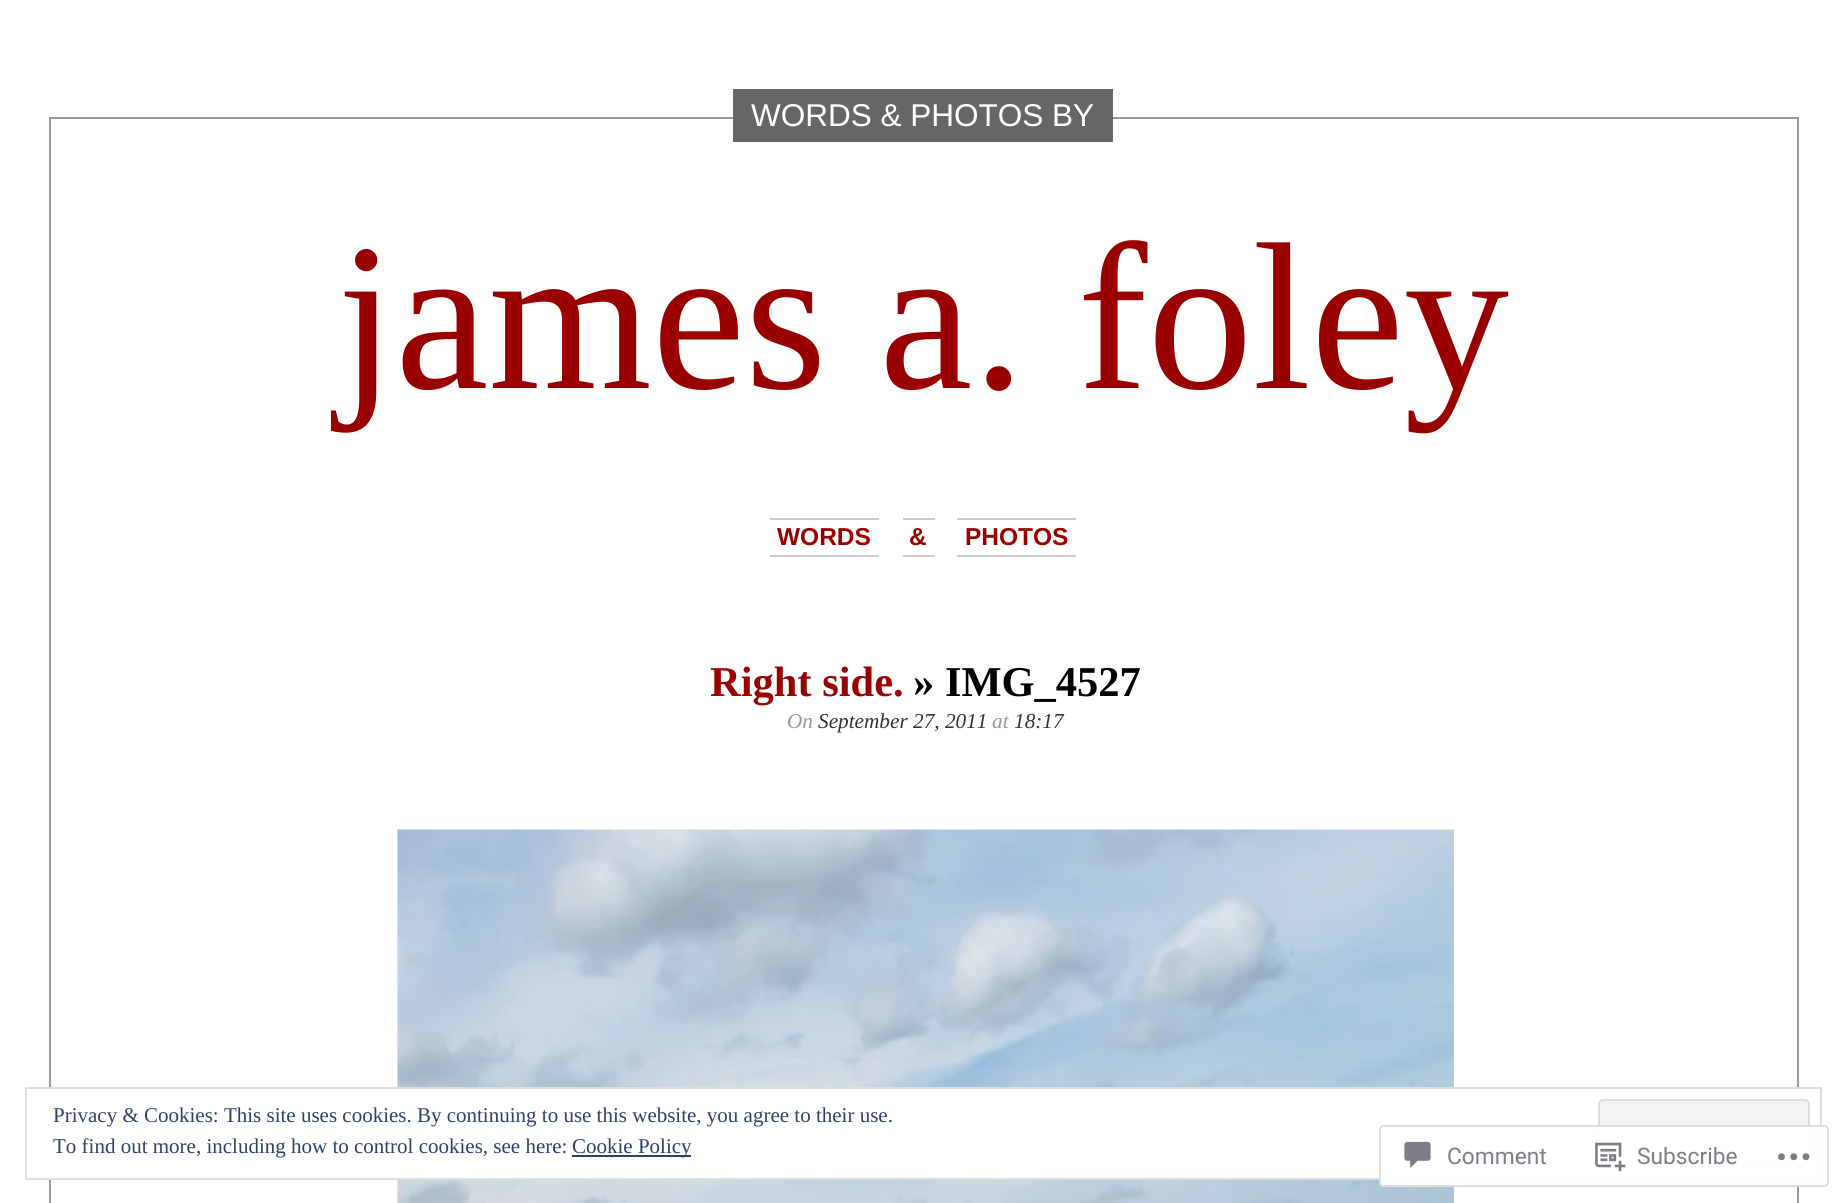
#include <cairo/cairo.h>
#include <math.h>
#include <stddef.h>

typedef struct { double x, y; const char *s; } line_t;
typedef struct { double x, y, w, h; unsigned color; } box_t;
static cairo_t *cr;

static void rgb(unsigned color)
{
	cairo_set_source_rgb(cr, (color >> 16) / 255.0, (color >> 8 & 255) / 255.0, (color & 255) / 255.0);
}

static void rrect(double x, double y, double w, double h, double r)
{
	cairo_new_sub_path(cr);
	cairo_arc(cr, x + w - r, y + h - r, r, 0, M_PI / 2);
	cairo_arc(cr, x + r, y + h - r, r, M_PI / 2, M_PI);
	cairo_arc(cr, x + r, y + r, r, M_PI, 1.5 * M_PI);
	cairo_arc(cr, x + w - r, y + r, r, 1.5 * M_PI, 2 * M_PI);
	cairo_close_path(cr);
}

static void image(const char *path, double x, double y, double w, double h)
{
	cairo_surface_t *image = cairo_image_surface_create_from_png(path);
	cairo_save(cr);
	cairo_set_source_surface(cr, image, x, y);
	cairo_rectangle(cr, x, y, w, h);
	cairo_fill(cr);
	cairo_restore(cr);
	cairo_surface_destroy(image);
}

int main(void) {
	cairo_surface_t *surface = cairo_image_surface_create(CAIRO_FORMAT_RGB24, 1846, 1203);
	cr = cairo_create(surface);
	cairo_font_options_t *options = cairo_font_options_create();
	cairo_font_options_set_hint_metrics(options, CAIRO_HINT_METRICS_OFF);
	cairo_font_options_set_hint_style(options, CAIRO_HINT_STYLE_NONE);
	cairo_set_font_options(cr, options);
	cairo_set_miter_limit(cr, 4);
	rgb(0xffffff);
	cairo_paint(cr);
	{
		static const box_t items[] = {
			{49, 117, 1750, 2, 0x999999},
			{733, 89, 380, 53, 0x666666},
			{1797, 117, 2, 1086, 0x999999},
			{49, 117, 2, 1086, 0x999999},
			{770, 518, 109, 2, 0xcccccc},
			{770, 555, 109, 2, 0xcccccc},
			{903, 518, 32, 2, 0xcccccc},
			{903, 555, 32, 2, 0xcccccc},
			{957, 518, 119, 2, 0xcccccc},
			{957, 555, 119, 2, 0xcccccc},
		};
		for (size_t i = 0; i < sizeof items / sizeof *items; i++) {
			rgb(items[i].color);
			cairo_rectangle(cr, items[i].x, items[i].y, items[i].w, items[i].h);
			cairo_fill(cr);
		}
	}
	image("img/1.png", 397, 829, 1058, 374);
	rgb(0xffffff);
	cairo_rectangle(cr, 49, 1089, 1750, 89);
	cairo_fill(cr);
	cairo_rectangle(cr, 26, 1088, 1795, 91);
	rgb(0xdedede);
	cairo_stroke(cr);
	rgb(0xf3f3f3);
	rrect(1599, 1100, 210, 66, 4);
	cairo_fill_preserve(cr);
	rgb(0xdedede);
	cairo_stroke(cr);
	rgb(0x2e4467);
	cairo_rectangle(cr, 572, 1155, 119, 2);
	cairo_fill(cr);
	cairo_set_source_rgba(cr, 1, 1, 1, 0.98);
	rrect(1379, 1125, 450, 62, 5);
	cairo_fill(cr);
	rrect(1380, 1126, 448, 60, 4);
	cairo_set_source_rgba(cr, 0.863, 0.863, 0.871, 0.98);
	cairo_stroke(cr);
	image("img/2.png", 1404, 1141, 27, 27);
	image("img/3.png", 1595, 1142, 31, 30);
	image("img/4.png", 1778, 1153, 32, 8);
	cairo_select_font_face(cr, "Liberation Sans", CAIRO_FONT_SLANT_NORMAL, CAIRO_FONT_WEIGHT_NORMAL);
	cairo_set_font_size(cr, 31.5);
	rgb(0xffffff);
	cairo_move_to(cr, 751, 126);
	cairo_show_text(cr, "WORDS & PHOTOS BY");
	cairo_select_font_face(cr, "Liberation Serif", CAIRO_FONT_SLANT_NORMAL, CAIRO_FONT_WEIGHT_NORMAL);
	cairo_set_font_size(cr, 210);
	rgb(0x990000);
	cairo_move_to(cr, 337, 388);
	cairo_show_text(cr, "james a. foley");
	cairo_select_font_face(cr, "Liberation Sans", CAIRO_FONT_SLANT_NORMAL, CAIRO_FONT_WEIGHT_BOLD);
	cairo_set_font_size(cr, 24.5);
	{
		static const line_t items[] = {
			{777, 545, "WORDS"},
			{909, 545, "&"},
			{965, 545, "PHOTOS"},
		};
		for (size_t i = 0; i < sizeof items / sizeof *items; i++) {
			cairo_move_to(cr, items[i].x, items[i].y);
			cairo_show_text(cr, items[i].s);
		}
	}
	cairo_select_font_face(cr, "Liberation Serif", CAIRO_FONT_SLANT_NORMAL, CAIRO_FONT_WEIGHT_BOLD);
	cairo_set_font_size(cr, 42.5);
	cairo_move_to(cr, 710, 696);
	cairo_show_text(cr, "Right side.");
	rgb(0x000000);
	cairo_move_to(cr, 913, 696);
	cairo_show_text(cr, "» IMG_4527");
	cairo_select_font_face(cr, "Liberation Serif", CAIRO_FONT_SLANT_ITALIC, CAIRO_FONT_WEIGHT_NORMAL);
	cairo_set_font_size(cr, 21.25);
	rgb(0x999999);
	cairo_move_to(cr, 787, 728);
	cairo_show_text(cr, "On");
	rgb(0x333333);
	cairo_move_to(cr, 818, 728);
	cairo_show_text(cr, "September 27, 2011");
	rgb(0x999999);
	cairo_move_to(cr, 992, 728);
	cairo_show_text(cr, "at");
	rgb(0x333333);
	cairo_move_to(cr, 1014, 728);
	cairo_show_text(cr, "18:17");
	cairo_select_font_face(cr, "Liberation Serif", CAIRO_FONT_SLANT_NORMAL, CAIRO_FONT_WEIGHT_NORMAL);
	cairo_set_font_size(cr, 21);
	rgb(0x2e4467);
	{
		static const line_t items[] = {
			{53, 1122, "Privacy & Cookies: This site uses cookies. By continuing to use this website, you agree to their use."},
			{53, 1153, "To find out more, including how to control cookies, see here:"},
			{572, 1153, "Cookie Policy"},
		};
		for (size_t i = 0; i < sizeof items / sizeof *items; i++) {
			cairo_move_to(cr, items[i].x, items[i].y);
			cairo_show_text(cr, items[i].s);
		}
	}
	cairo_select_font_face(cr, "Roboto", CAIRO_FONT_SLANT_NORMAL, CAIRO_FONT_WEIGHT_NORMAL);
	cairo_set_font_size(cr, 22.75);
	rgb(0x7b7f85);
	cairo_move_to(cr, 1447, 1164);
	cairo_show_text(cr, "Comment");
	cairo_move_to(cr, 1637, 1164);
	cairo_show_text(cr, "Subscribe");
	cairo_surface_write_to_png(surface, "page.png");
	cairo_font_options_destroy(options);
	cairo_destroy(cr);
	cairo_surface_destroy(surface);
	return 0;
}
